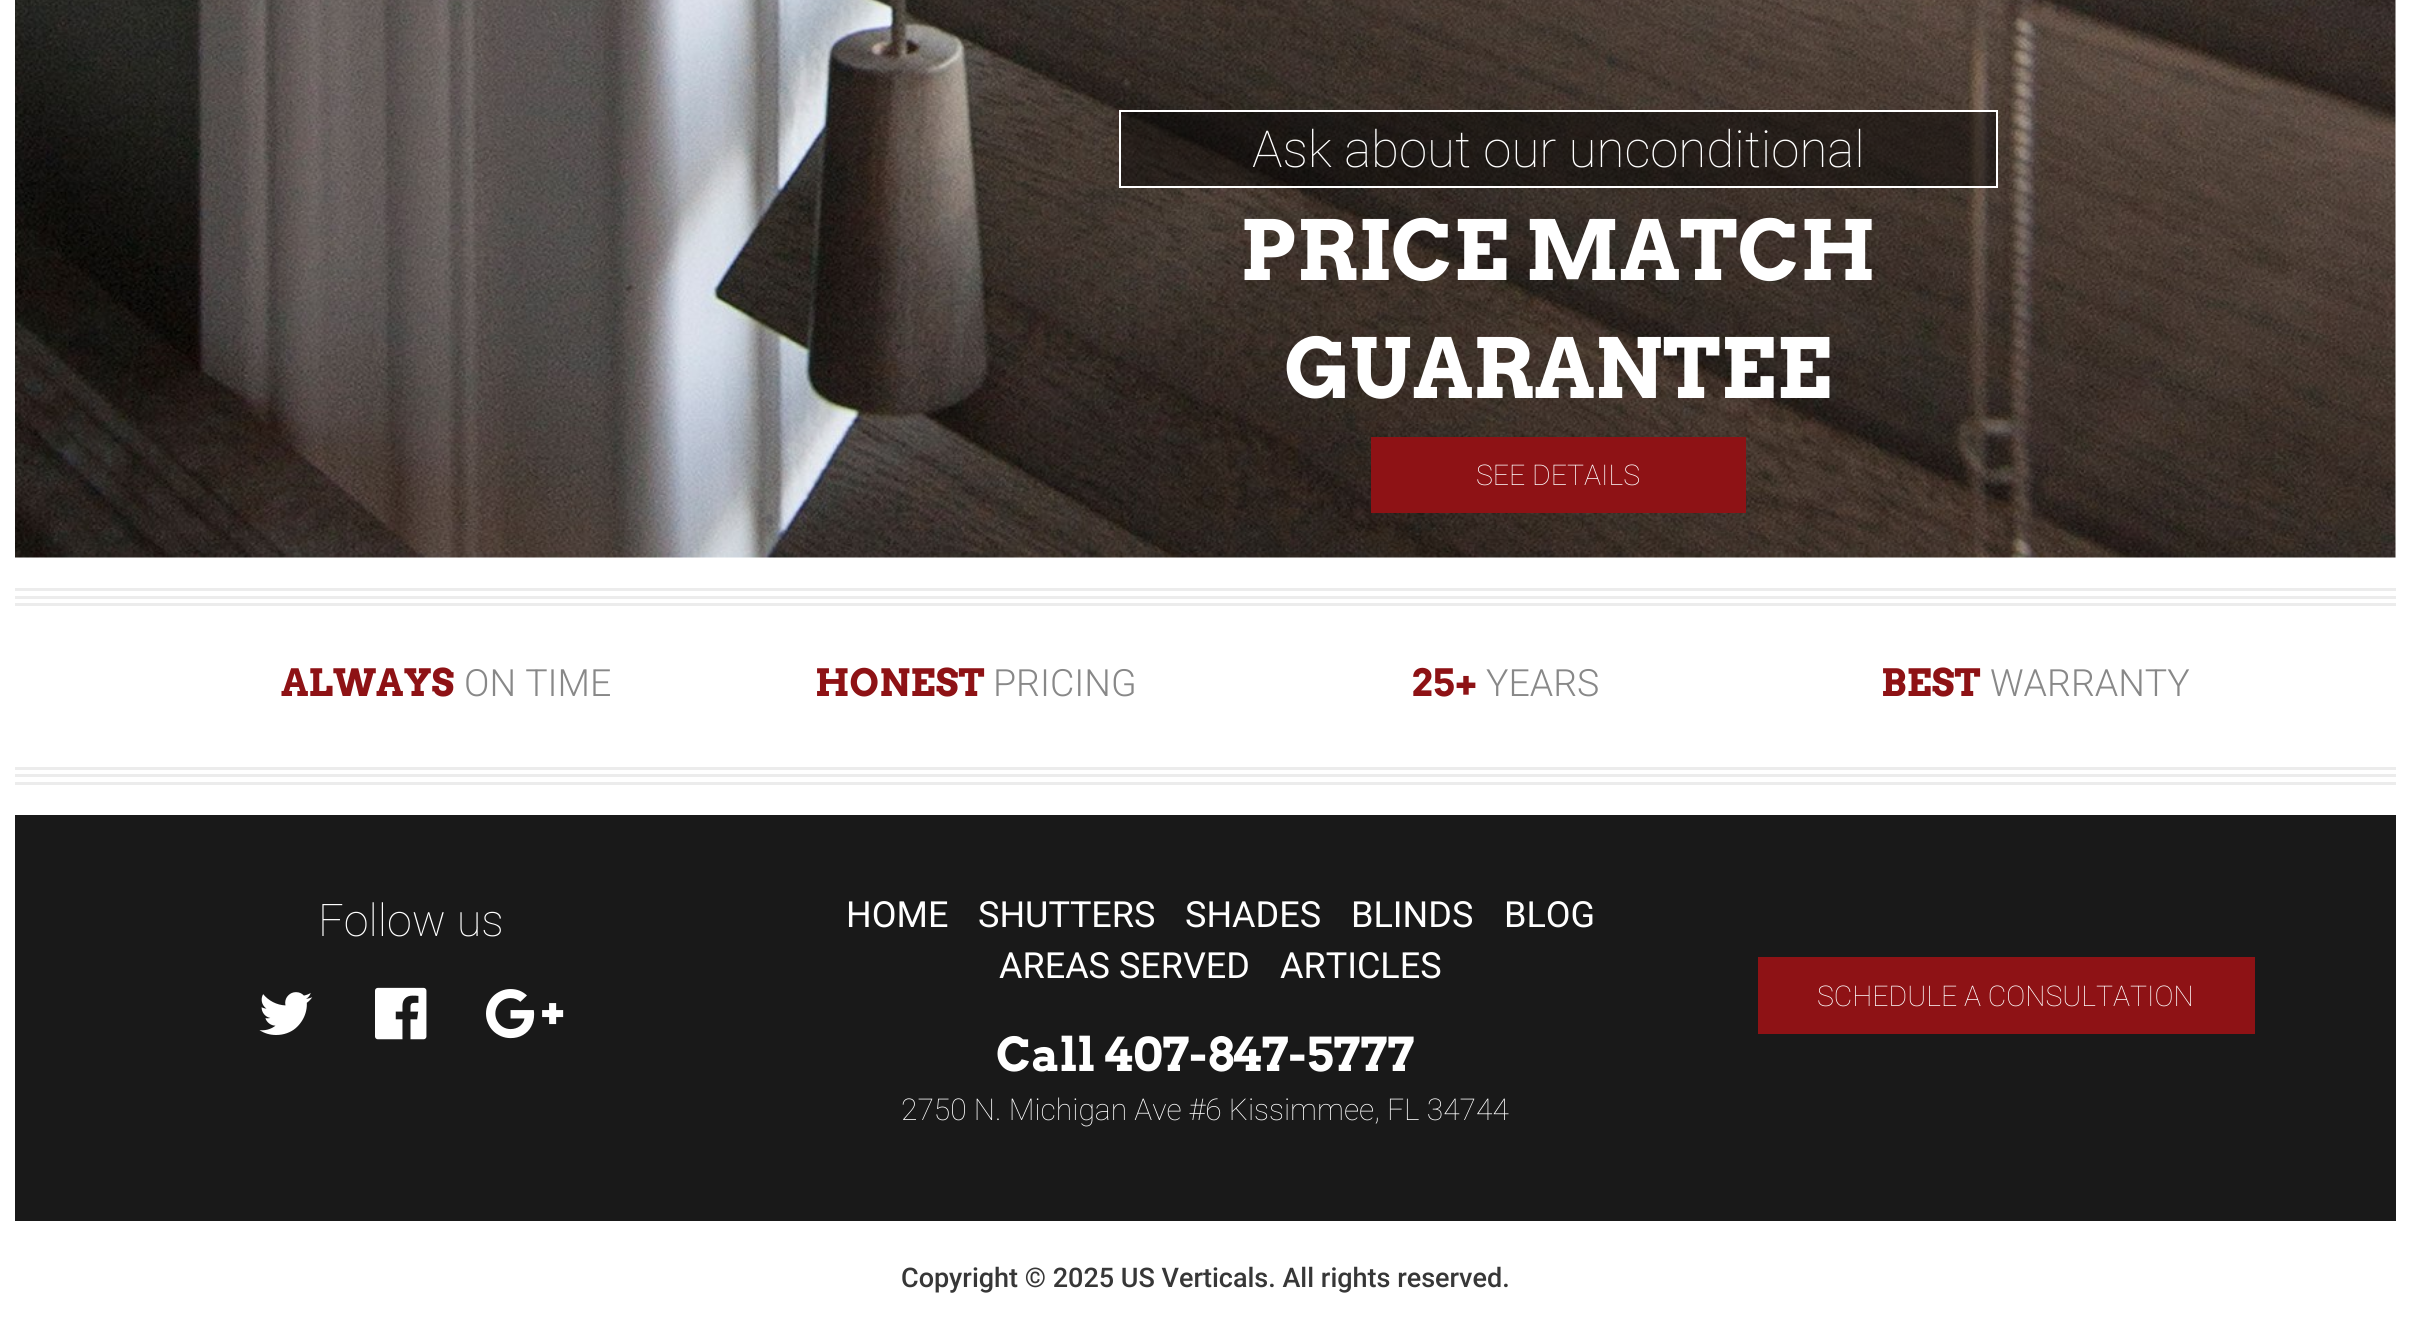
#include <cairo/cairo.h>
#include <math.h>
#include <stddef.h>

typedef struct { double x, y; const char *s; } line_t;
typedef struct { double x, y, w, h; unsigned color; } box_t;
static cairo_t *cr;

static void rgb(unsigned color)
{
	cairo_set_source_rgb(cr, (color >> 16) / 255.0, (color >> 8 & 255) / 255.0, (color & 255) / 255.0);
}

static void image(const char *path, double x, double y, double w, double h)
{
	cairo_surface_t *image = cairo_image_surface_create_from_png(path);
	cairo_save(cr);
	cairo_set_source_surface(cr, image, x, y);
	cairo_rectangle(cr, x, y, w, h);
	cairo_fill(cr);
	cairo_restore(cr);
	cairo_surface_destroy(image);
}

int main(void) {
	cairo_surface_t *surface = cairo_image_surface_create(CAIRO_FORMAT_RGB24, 2410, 1335);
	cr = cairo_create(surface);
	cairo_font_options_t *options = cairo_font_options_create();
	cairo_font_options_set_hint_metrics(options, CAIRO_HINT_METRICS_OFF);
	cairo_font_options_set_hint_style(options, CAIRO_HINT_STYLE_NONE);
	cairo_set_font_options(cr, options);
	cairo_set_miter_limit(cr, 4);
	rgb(0xffffff);
	cairo_paint(cr);
	image("img/1.png", 15, 0, 2381, 558);
	cairo_set_source_rgba(cr, 0, 0, 0, 0.45);
	cairo_rectangle(cr, 1120, 111, 877, 76);
	cairo_fill_preserve(cr);
	rgb(0xffffff);
	cairo_stroke(cr);
	{
		static const box_t items[] = {
			{1371, 437, 375, 76, 0x8e1215},
			{15, 588, 2381, 3, 0xececec},
			{15, 596, 2381, 3, 0xececec},
			{15, 603, 2381, 3, 0xececec},
			{15, 767, 2381, 3, 0xececec},
			{15, 774, 2381, 3, 0xececec},
			{15, 782, 2381, 3, 0xececec},
			{15, 815, 2381, 406, 0x191919},
		};
		for (size_t i = 0; i < sizeof items / sizeof *items; i++) {
			rgb(items[i].color);
			cairo_rectangle(cr, items[i].x, items[i].y, items[i].w, items[i].h);
			cairo_fill(cr);
		}
	}
	image("img/2.png", 259, 992, 54, 43);
	image("img/3.png", 375, 987, 52, 53);
	image("img/4.png", 486, 989, 78, 50);
	rgb(0x8e1215);
	cairo_rectangle(cr, 1758, 957, 497, 77);
	cairo_fill(cr);
	cairo_select_font_face(cr, "Roboto Thin", CAIRO_FONT_SLANT_NORMAL, CAIRO_FONT_WEIGHT_NORMAL);
	cairo_set_font_size(cr, 51);
	rgb(0xffffff);
	cairo_move_to(cr, 1252, 167);
	cairo_show_text(cr, "Ask about our unconditional");
	cairo_select_font_face(cr, "Arvo", CAIRO_FONT_SLANT_NORMAL, CAIRO_FONT_WEIGHT_BOLD);
	cairo_set_font_size(cr, 82.5);
	cairo_move_to(cr, 1240, 280);
	cairo_show_text(cr, "PRICE MATCH");
	cairo_move_to(cr, 1284, 398);
	cairo_show_text(cr, "GUARANTEE");
	cairo_select_font_face(cr, "Roboto Thin", CAIRO_FONT_SLANT_NORMAL, CAIRO_FONT_WEIGHT_NORMAL);
	cairo_set_font_size(cr, 28.5);
	cairo_move_to(cr, 1476, 485);
	cairo_show_text(cr, "SEE DETAILS");
	cairo_select_font_face(cr, "Arvo", CAIRO_FONT_SLANT_NORMAL, CAIRO_FONT_WEIGHT_BOLD);
	cairo_set_font_size(cr, 37.5);
	rgb(0x8e1215);
	cairo_move_to(cr, 281, 696);
	cairo_show_text(cr, "ALWAYS");
	cairo_select_font_face(cr, "Roboto Light", CAIRO_FONT_SLANT_NORMAL, CAIRO_FONT_WEIGHT_NORMAL);
	rgb(0x888888);
	cairo_move_to(cr, 464, 696);
	cairo_show_text(cr, "ON TIME");
	cairo_select_font_face(cr, "Arvo", CAIRO_FONT_SLANT_NORMAL, CAIRO_FONT_WEIGHT_BOLD);
	rgb(0x8e1215);
	cairo_move_to(cr, 815, 696);
	cairo_show_text(cr, "HONEST");
	cairo_select_font_face(cr, "Roboto Light", CAIRO_FONT_SLANT_NORMAL, CAIRO_FONT_WEIGHT_NORMAL);
	rgb(0x888888);
	cairo_move_to(cr, 993, 696);
	cairo_show_text(cr, "PRICING");
	cairo_select_font_face(cr, "Arvo", CAIRO_FONT_SLANT_NORMAL, CAIRO_FONT_WEIGHT_BOLD);
	rgb(0x8e1215);
	cairo_move_to(cr, 1411, 696);
	cairo_show_text(cr, "25+");
	cairo_select_font_face(cr, "Roboto Light", CAIRO_FONT_SLANT_NORMAL, CAIRO_FONT_WEIGHT_NORMAL);
	rgb(0x888888);
	cairo_move_to(cr, 1486, 696);
	cairo_show_text(cr, "YEARS");
	cairo_select_font_face(cr, "Arvo", CAIRO_FONT_SLANT_NORMAL, CAIRO_FONT_WEIGHT_BOLD);
	rgb(0x8e1215);
	cairo_move_to(cr, 1881, 696);
	cairo_show_text(cr, "BEST");
	cairo_select_font_face(cr, "Roboto Light", CAIRO_FONT_SLANT_NORMAL, CAIRO_FONT_WEIGHT_NORMAL);
	rgb(0x888888);
	cairo_move_to(cr, 1990, 696);
	cairo_show_text(cr, "WARRANTY");
	cairo_select_font_face(cr, "Roboto Thin", CAIRO_FONT_SLANT_NORMAL, CAIRO_FONT_WEIGHT_NORMAL);
	cairo_set_font_size(cr, 45);
	rgb(0xffffff);
	cairo_move_to(cr, 318, 936);
	cairo_show_text(cr, "Follow us");
	cairo_select_font_face(cr, "Roboto", CAIRO_FONT_SLANT_NORMAL, CAIRO_FONT_WEIGHT_NORMAL);
	cairo_set_font_size(cr, 36);
	{
		static const line_t items[] = {
			{846, 927, "HOME"},
			{978, 927, "SHUTTERS"},
			{1185, 927, "SHADES"},
			{1351, 927, "BLINDS"},
			{1504, 927, "BLOG"},
			{999, 978, "AREAS SERVED"},
			{1280, 978, "ARTICLES"},
		};
		for (size_t i = 0; i < sizeof items / sizeof *items; i++) {
			cairo_move_to(cr, items[i].x, items[i].y);
			cairo_show_text(cr, items[i].s);
		}
	}
	cairo_select_font_face(cr, "Arvo", CAIRO_FONT_SLANT_NORMAL, CAIRO_FONT_WEIGHT_BOLD);
	cairo_set_font_size(cr, 46.5);
	cairo_move_to(cr, 996, 1071);
	cairo_show_text(cr, "Call 407-847-5777");
	cairo_select_font_face(cr, "Roboto Thin", CAIRO_FONT_SLANT_NORMAL, CAIRO_FONT_WEIGHT_NORMAL);
	cairo_set_font_size(cr, 30);
	cairo_move_to(cr, 901, 1120);
	cairo_show_text(cr, "2750 N. Michigan Ave #6 Kissimmee, FL 34744");
	cairo_set_font_size(cr, 28.5);
	cairo_move_to(cr, 1817, 1006);
	cairo_show_text(cr, "SCHEDULE A CONSULTATION");
	cairo_select_font_face(cr, "Roboto Medium", CAIRO_FONT_SLANT_NORMAL, CAIRO_FONT_WEIGHT_NORMAL);
	cairo_set_font_size(cr, 27);
	rgb(0x373737);
	cairo_move_to(cr, 901, 1287);
	cairo_show_text(cr, "Copyright © 2025 US Verticals. All rights reserved.");
	cairo_surface_write_to_png(surface, "page.png");
	cairo_font_options_destroy(options);
	cairo_destroy(cr);
	cairo_surface_destroy(surface);
	return 0;
}
